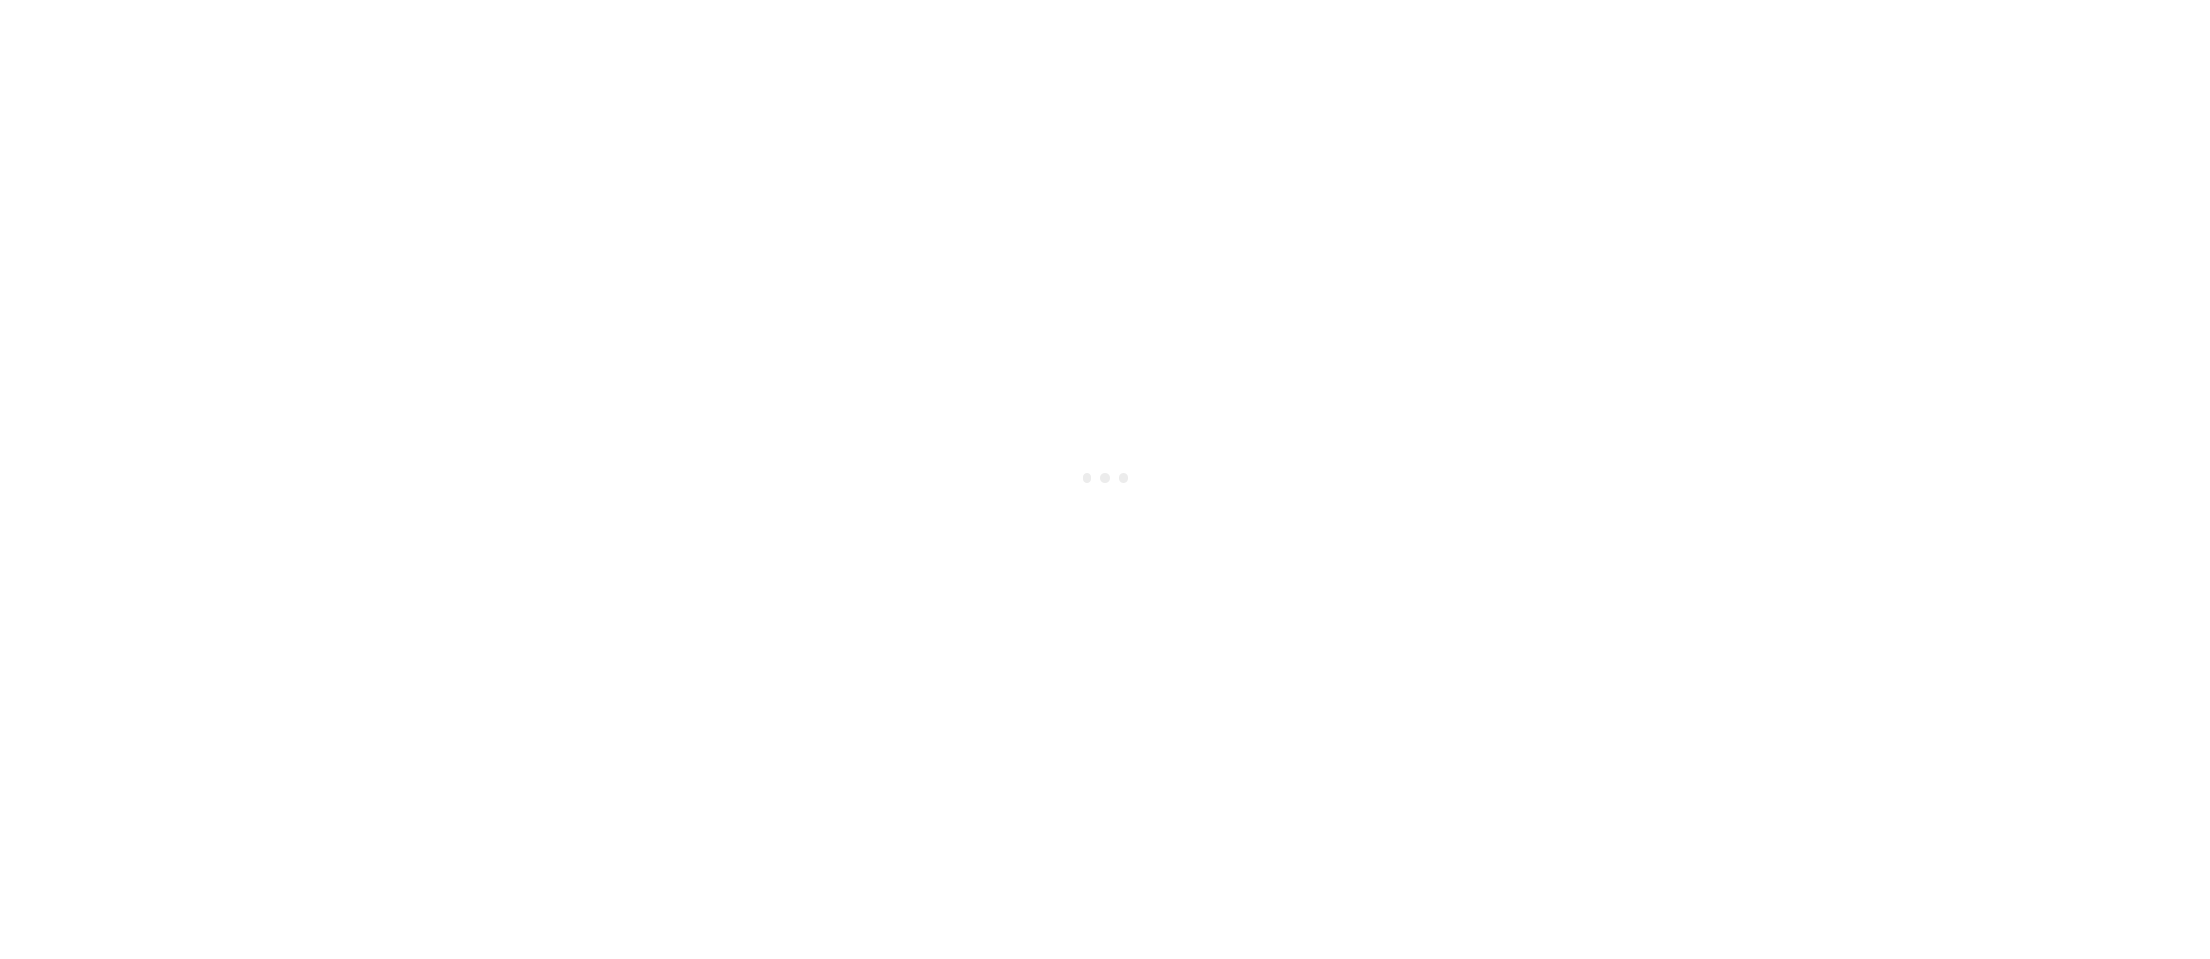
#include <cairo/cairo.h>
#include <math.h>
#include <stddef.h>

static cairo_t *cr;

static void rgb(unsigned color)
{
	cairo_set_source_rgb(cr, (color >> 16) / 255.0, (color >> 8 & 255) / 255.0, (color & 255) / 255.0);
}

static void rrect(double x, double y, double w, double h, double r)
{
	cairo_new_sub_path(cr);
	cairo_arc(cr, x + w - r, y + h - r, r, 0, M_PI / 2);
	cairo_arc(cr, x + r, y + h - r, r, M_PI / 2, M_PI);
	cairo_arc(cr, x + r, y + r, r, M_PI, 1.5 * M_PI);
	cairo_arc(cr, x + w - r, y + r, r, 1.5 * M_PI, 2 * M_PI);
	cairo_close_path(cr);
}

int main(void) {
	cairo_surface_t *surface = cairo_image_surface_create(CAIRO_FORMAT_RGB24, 2210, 959);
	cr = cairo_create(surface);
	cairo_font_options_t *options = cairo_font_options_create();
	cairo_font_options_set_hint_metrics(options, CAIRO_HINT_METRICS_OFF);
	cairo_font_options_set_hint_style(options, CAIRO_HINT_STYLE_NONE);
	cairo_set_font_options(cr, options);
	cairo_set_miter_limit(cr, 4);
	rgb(0xffffff);
	cairo_paint(cr);
	rgb(0xececec);
	rrect(1083, 473, 8, 10, 4);
	cairo_fill(cr);
	cairo_arc(cr, 1105, 478, 5, 0, 2 * M_PI);
	cairo_fill(cr);
	rrect(1119, 473, 9, 10, 4.5);
	cairo_fill(cr);
	cairo_surface_write_to_png(surface, "page.png");
	cairo_font_options_destroy(options);
	cairo_destroy(cr);
	cairo_surface_destroy(surface);
	return 0;
}
